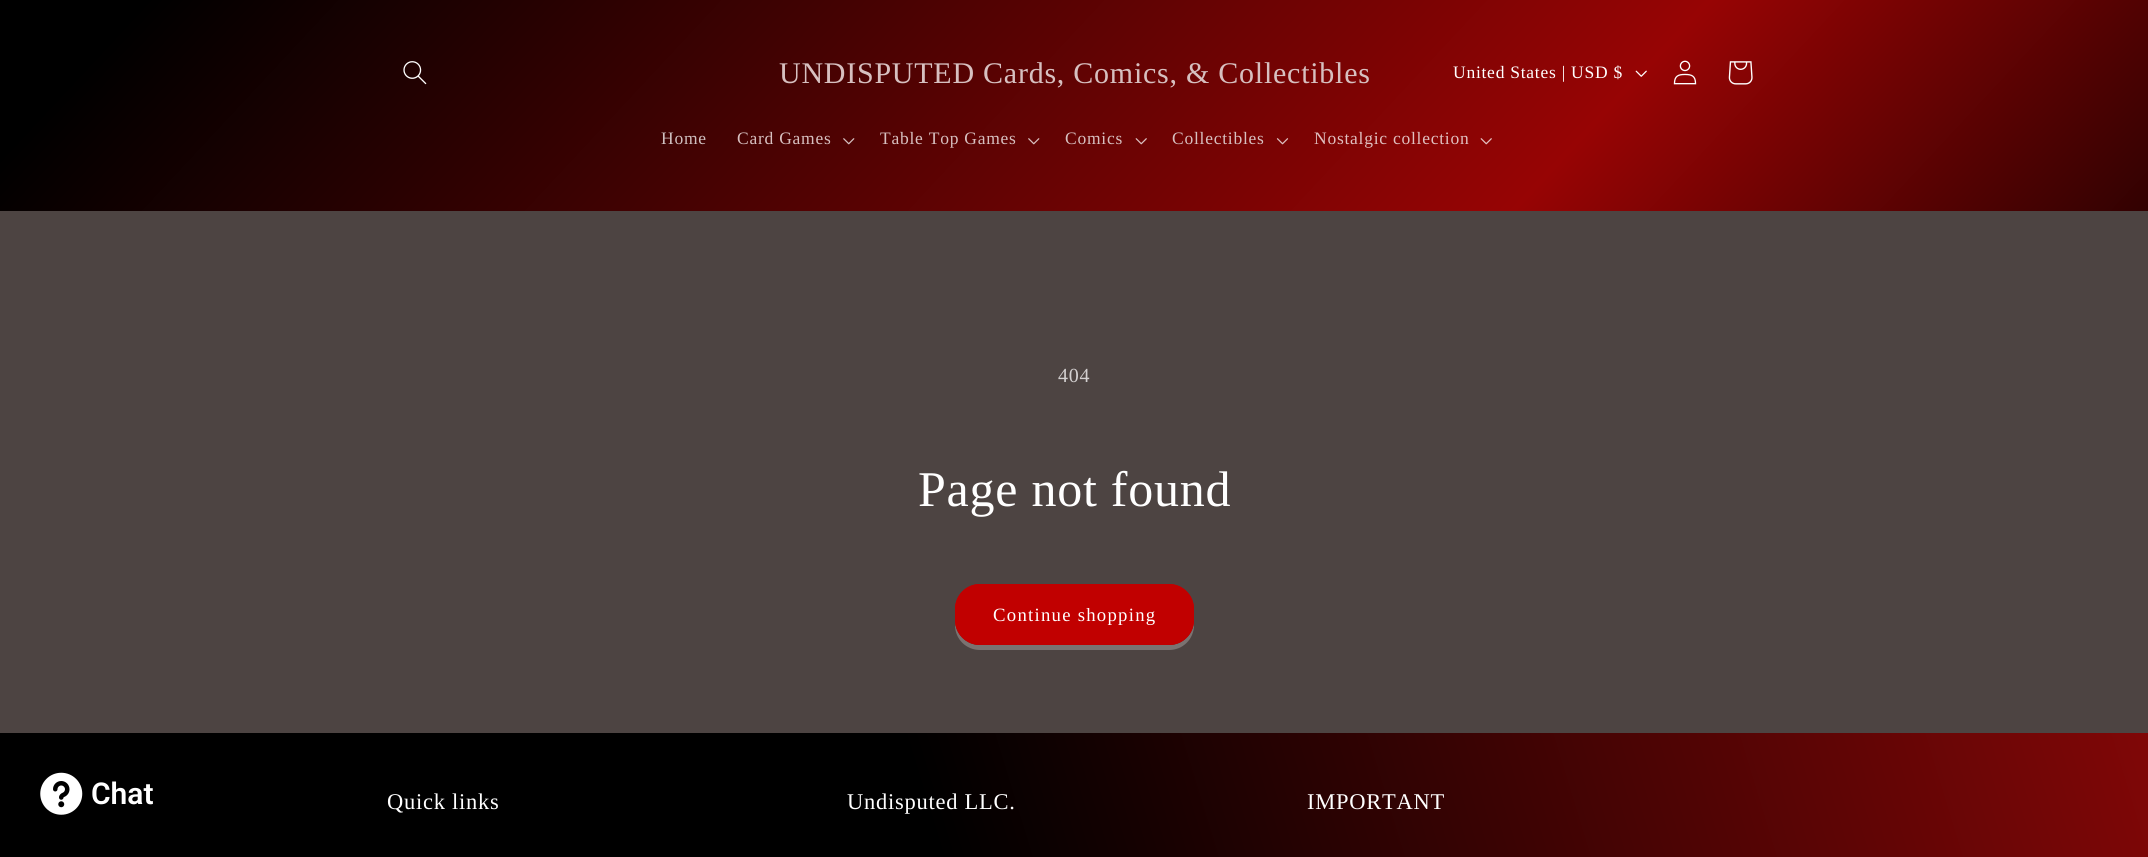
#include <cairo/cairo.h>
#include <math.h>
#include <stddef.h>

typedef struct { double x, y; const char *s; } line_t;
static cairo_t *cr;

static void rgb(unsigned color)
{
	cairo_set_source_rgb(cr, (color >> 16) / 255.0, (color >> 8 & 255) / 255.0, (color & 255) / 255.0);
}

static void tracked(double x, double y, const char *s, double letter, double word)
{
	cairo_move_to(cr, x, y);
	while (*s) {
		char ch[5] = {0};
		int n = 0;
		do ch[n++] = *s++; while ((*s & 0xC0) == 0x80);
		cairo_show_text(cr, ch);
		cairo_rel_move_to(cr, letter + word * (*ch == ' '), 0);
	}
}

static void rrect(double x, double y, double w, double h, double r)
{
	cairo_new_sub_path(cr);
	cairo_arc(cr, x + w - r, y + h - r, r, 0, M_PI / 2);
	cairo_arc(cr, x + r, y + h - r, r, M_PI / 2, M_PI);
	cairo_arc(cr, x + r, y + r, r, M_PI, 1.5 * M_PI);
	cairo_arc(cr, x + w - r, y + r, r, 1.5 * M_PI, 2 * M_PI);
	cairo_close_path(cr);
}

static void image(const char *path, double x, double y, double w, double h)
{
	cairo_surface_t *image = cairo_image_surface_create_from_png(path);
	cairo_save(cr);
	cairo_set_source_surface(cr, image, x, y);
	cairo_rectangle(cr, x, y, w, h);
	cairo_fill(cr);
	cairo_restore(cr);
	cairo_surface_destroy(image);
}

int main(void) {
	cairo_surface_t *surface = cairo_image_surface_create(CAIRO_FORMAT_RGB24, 2148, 857);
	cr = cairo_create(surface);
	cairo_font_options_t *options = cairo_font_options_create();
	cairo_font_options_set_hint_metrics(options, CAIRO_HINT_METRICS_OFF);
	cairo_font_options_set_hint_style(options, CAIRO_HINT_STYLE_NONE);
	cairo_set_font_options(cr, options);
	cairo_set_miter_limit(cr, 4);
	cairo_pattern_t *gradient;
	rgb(0x4d4442);
	cairo_paint(cr);
	gradient = cairo_pattern_create_linear(286, -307, 1863, 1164);
	cairo_pattern_add_color_stop_rgba(gradient, 0.05, 0, 0, 0, 1);
	cairo_pattern_add_color_stop_rgba(gradient, 0.58, 0.592, 0.016, 0.016, 1);
	cairo_pattern_add_color_stop_rgba(gradient, 0.9, 0, 0, 0, 1);
	cairo_set_source(cr, gradient);
	cairo_pattern_destroy(gradient);
	cairo_rectangle(cr, 0, 0, 2148, 211);
	cairo_fill(cr);
	image("img/1.png", 403, 61, 24, 24);
	image("img/2.png", 1635, 70, 12, 7);
	image("img/3.png", 1673, 60, 24, 25);
	image("img/4.png", 1728, 61, 25, 24);
	image("img/5.png", 843, 138, 12, 7);
	image("img/6.png", 1028, 138, 12, 7);
	image("img/7.png", 1135, 138, 12, 7);
	image("img/8.png", 1276, 138, 13, 7);
	image("img/9.png", 1480, 138, 12, 7);
	rgb(0x7a7371);
	cairo_new_path(cr);
	cairo_move_to(cr, 955, 620);
	cairo_line_to(cr, 955, 625);
	cairo_curve_to(cr, 955, 639, 966, 650, 980, 650);
	cairo_line_to(cr, 1169, 650);
	cairo_curve_to(cr, 1183, 650, 1194, 639, 1194, 625);
	cairo_line_to(cr, 1194, 610);
	cairo_line_to(cr, 1194, 620);
	cairo_curve_to(cr, 1194, 634, 1183, 645, 1169, 645);
	cairo_line_to(cr, 980, 645);
	cairo_curve_to(cr, 966, 645, 955, 634, 955, 620);
	cairo_close_path(cr);
	cairo_fill(cr);
	rgb(0xc10000);
	rrect(955, 584, 239, 61, 25);
	cairo_fill(cr);
	rrect(956.5, 585.5, 236, 58, 23.5);
	cairo_set_line_width(cr, 3);
	cairo_stroke(cr);
	gradient = cairo_pattern_create_linear(-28, 766, 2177, 92);
	cairo_pattern_add_color_stop_rgba(gradient, 0, 0, 0, 0, 1);
	cairo_pattern_add_color_stop_rgba(gradient, 0.39, 0, 0, 0, 1);
	cairo_pattern_add_color_stop_rgba(gradient, 1, 0.592, 0.031, 0.031, 1);
	cairo_set_source(cr, gradient);
	cairo_pattern_destroy(gradient);
	cairo_rectangle(cr, 0, 733, 2148, 124);
	cairo_fill(cr);
	image("img/10.png", 40, 772, 43, 43);
	cairo_select_font_face(cr, "Liberation Serif", CAIRO_FONT_SLANT_NORMAL, CAIRO_FONT_WEIGHT_NORMAL);
	cairo_set_font_size(cr, 30);
	rgb(0xd7c0c0);
	tracked(779, 83, "UNDISPUTED Cards, Comics, & Collectibles", 0.75, 0);
	cairo_set_font_size(cr, 17.5);
	rgb(0xffffff);
	tracked(1453, 78, "United States | USD $", 0.75, 0);
	rgb(0xcfc0c0);
	tracked(661, 144, "Home", 0.75, 0);
	rgb(0xd7c0c0);
	{
		static const line_t items[] = {
			{737, 144, "Card Games"},
			{880, 144, "Table Top Games"},
			{1065, 144, "Comics"},
			{1172, 144, "Collectibles"},
		};
		for (size_t i = 0; i < sizeof items / sizeof *items; i++) {
			tracked(items[i].x, items[i].y, items[i].s, 0.75, 0);
		}
	}
	rgb(0xe0c0c0);
	tracked(1314, 144, "Nostalgic collection", 0.75, 0);
	cairo_set_font_size(cr, 20);
	rgb(0xd3d0d0);
	tracked(1058, 382, "404", 0.75, 0);
	cairo_set_font_size(cr, 50);
	rgb(0xffffff);
	tracked(918, 506, "Page not found", 0.75, 0);
	cairo_set_font_size(cr, 18.75);
	tracked(993, 621, "Continue shopping", 1.25, 0);
	cairo_select_font_face(cr, "Roboto SemiBold", CAIRO_FONT_SLANT_NORMAL, CAIRO_FONT_WEIGHT_NORMAL);
	cairo_set_font_size(cr, 30);
	cairo_move_to(cr, 91, 804);
	cairo_show_text(cr, "Chat");
	cairo_select_font_face(cr, "Liberation Serif", CAIRO_FONT_SLANT_NORMAL, CAIRO_FONT_WEIGHT_NORMAL);
	cairo_set_font_size(cr, 22.5);
	{
		static const line_t items[] = {
			{387, 809, "Quick links"},
			{847, 809, "Undisputed LLC."},
			{1307, 809, "IMPORTANT"},
		};
		for (size_t i = 0; i < sizeof items / sizeof *items; i++) {
			tracked(items[i].x, items[i].y, items[i].s, 0.75, 0);
		}
	}
	cairo_surface_write_to_png(surface, "page.png");
	cairo_font_options_destroy(options);
	cairo_destroy(cr);
	cairo_surface_destroy(surface);
	return 0;
}
